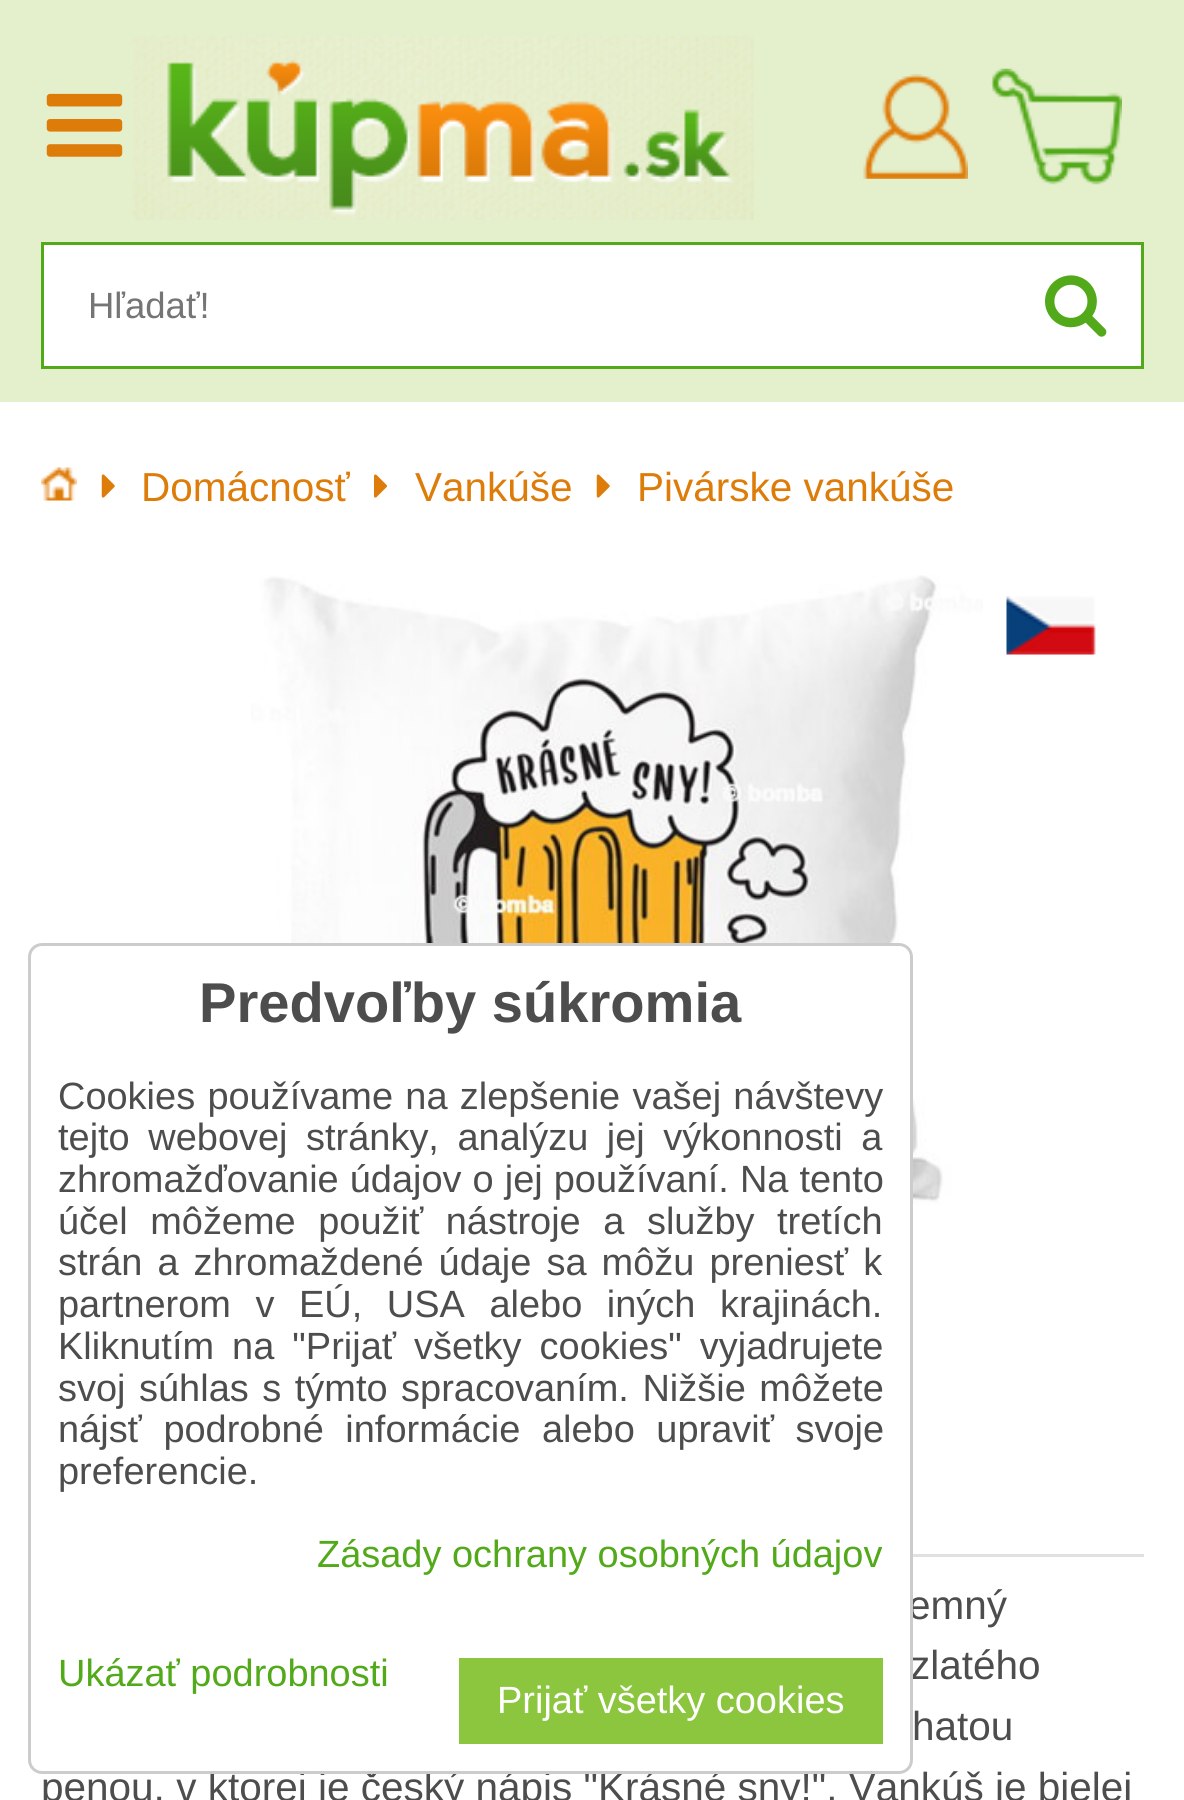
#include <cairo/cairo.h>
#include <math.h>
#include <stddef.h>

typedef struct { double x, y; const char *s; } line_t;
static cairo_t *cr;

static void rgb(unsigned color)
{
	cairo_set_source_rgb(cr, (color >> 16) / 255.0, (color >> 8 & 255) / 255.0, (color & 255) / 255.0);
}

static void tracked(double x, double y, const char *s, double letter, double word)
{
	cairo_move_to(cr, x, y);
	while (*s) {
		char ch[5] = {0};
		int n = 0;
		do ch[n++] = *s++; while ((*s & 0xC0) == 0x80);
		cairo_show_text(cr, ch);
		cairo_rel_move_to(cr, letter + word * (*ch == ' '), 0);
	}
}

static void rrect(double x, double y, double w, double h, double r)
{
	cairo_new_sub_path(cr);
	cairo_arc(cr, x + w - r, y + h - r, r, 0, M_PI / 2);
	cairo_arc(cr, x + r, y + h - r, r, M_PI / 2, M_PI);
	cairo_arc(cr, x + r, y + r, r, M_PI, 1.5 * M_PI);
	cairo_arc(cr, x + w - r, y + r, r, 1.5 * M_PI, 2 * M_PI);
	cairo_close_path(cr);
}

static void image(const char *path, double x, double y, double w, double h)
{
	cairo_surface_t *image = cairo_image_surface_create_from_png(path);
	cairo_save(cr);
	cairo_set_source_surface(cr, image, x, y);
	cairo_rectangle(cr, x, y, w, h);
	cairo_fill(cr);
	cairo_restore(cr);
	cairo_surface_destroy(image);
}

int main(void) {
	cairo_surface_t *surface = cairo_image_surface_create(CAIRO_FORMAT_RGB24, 1184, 1800);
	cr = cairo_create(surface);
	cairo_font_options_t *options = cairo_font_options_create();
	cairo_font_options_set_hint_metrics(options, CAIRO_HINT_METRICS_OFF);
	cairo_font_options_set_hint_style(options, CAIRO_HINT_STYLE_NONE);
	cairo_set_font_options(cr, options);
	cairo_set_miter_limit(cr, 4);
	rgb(0xffffff);
	cairo_paint(cr);
	rgb(0xe4efcc);
	cairo_rectangle(cr, 0, 0, 1184, 402);
	cairo_fill(cr);
	image("img/1.png", 46, 93, 77, 64);
	image("img/2.png", 132, 35, 622, 185);
	image("img/3.png", 863, 74, 105, 105);
	image("img/4.png", 990, 68, 132, 117);
	rgb(0xffffff);
	cairo_rectangle(cr, 42.5, 243.5, 1100, 124);
	cairo_fill_preserve(cr);
	rgb(0x52a919);
	cairo_set_line_width(cr, 3);
	cairo_stroke(cr);
	image("img/5.png", 1045, 275, 62, 62);
	image("img/6.png", 41, 467, 36, 34);
	image("img/7.png", 101, 474, 14, 24);
	image("img/8.png", 374, 474, 13, 24);
	image("img/7.png", 596, 474, 14, 24);
	image("img/9.png", 251, 575, 732, 630);
	image("img/10.png", 1006, 596, 90, 59);
	rgb(0xe0e0e0);
	cairo_rectangle(cr, 913, 1554, 231, 3);
	cairo_fill(cr);
	cairo_select_font_face(cr, "Liberation Sans", CAIRO_FONT_SLANT_NORMAL, CAIRO_FONT_WEIGHT_NORMAL);
	cairo_set_font_size(cr, 36.5);
	rgb(0x757575);
	cairo_move_to(cr, 88, 318);
	cairo_show_text(cr, "Hľadať!");
	cairo_set_font_size(cr, 40.5);
	rgb(0xdd7c09);
	{
		static const line_t items[] = {
			{141, 501, "Domácnosť"},
			{415, 501, "Vankúše"},
			{637, 501, "Pivárske vankúše"},
		};
		for (size_t i = 0; i < sizeof items / sizeof *items; i++) {
			cairo_move_to(cr, items[i].x, items[i].y);
			cairo_show_text(cr, items[i].s);
		}
	}
	rgb(0x4d4d4d);
	{
		static const line_t items[] = {
			{908, 1619, "emný"},
			{910, 1679, "zlatého"},
			{912, 1740, "hatou"},
			{41, 1801, "penou, v ktorej je český nápis \"Krásné sny!\". Vankúš je bielej"},
		};
		for (size_t i = 0; i < sizeof items / sizeof *items; i++) {
			cairo_move_to(cr, items[i].x, items[i].y);
			cairo_show_text(cr, items[i].s);
		}
	}
	rgb(0xffffff);
	rrect(29.5, 944.5, 882, 828, 12.5);
	cairo_fill_preserve(cr);
	rgb(0xcccccc);
	cairo_stroke(cr);
	cairo_select_font_face(cr, "Liberation Sans", CAIRO_FONT_SLANT_NORMAL, CAIRO_FONT_WEIGHT_BOLD);
	cairo_set_font_size(cr, 56.1);
	rgb(0x4d4d4d);
	cairo_move_to(cr, 199, 1022);
	cairo_show_text(cr, "Predvoľby súkromia");
	cairo_select_font_face(cr, "Liberation Sans", CAIRO_FONT_SLANT_NORMAL, CAIRO_FONT_WEIGHT_NORMAL);
	cairo_set_font_size(cr, 37.95);
	tracked(58, 1109, "Cookies používame na zlepšenie vašej návštevy", 0, 1.75);
	tracked(58, 1150, "tejto webovej stránky, analýzu jej výkonnosti a", 0, 8);
	tracked(58, 1192, "zhromažďovanie údajov o jej používaní. Na tento", 0, 0.5);
	tracked(58, 1234, "účel môžeme použiť nástroje a služby tretích", 0, 12);
	tracked(58, 1275, "strán a zhromaždené údaje sa môžu preniesť k", 0, 4.5);
	tracked(58, 1317, "partnerom v EÚ, USA alebo iných krajinách.", 0, 14);
	tracked(58, 1359, "Kliknutím na \"Prijať všetky cookies\" vyjadrujete", 0, 7.5);
	tracked(58, 1401, "svoj súhlas s týmto spracovaním. Nižšie môžete", 0, 3);
	tracked(58, 1442, "nájsť podrobné informácie alebo upraviť svoje", 0, 11);
	cairo_move_to(cr, 58, 1484);
	cairo_show_text(cr, "preferencie.");
	rgb(0x52a919);
	cairo_move_to(cr, 317, 1567);
	cairo_show_text(cr, "Zásady ochrany osobných údajov");
	cairo_move_to(cr, 58, 1686);
	cairo_show_text(cr, "Ukázať podrobnosti");
	rgb(0x8cc63f);
	cairo_rectangle(cr, 459, 1658, 424, 86);
	cairo_fill(cr);
	rgb(0xffffff);
	cairo_move_to(cr, 497, 1713);
	cairo_show_text(cr, "Prijať všetky cookies");
	cairo_surface_write_to_png(surface, "page.png");
	cairo_font_options_destroy(options);
	cairo_destroy(cr);
	cairo_surface_destroy(surface);
	return 0;
}
